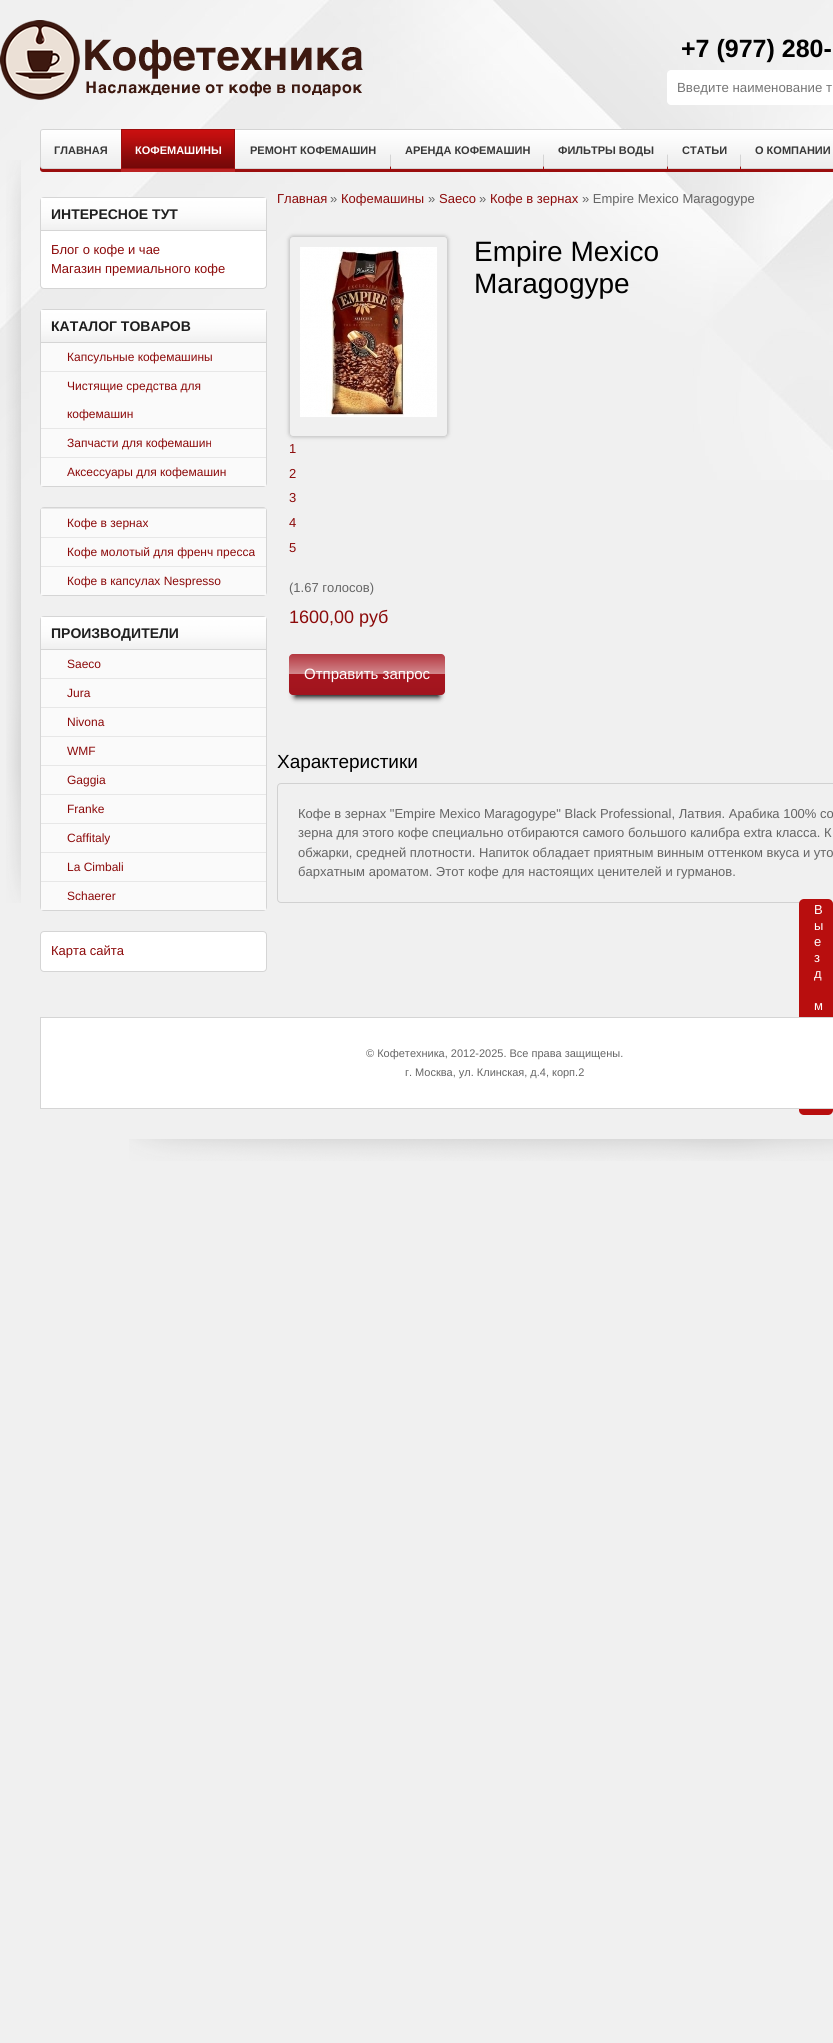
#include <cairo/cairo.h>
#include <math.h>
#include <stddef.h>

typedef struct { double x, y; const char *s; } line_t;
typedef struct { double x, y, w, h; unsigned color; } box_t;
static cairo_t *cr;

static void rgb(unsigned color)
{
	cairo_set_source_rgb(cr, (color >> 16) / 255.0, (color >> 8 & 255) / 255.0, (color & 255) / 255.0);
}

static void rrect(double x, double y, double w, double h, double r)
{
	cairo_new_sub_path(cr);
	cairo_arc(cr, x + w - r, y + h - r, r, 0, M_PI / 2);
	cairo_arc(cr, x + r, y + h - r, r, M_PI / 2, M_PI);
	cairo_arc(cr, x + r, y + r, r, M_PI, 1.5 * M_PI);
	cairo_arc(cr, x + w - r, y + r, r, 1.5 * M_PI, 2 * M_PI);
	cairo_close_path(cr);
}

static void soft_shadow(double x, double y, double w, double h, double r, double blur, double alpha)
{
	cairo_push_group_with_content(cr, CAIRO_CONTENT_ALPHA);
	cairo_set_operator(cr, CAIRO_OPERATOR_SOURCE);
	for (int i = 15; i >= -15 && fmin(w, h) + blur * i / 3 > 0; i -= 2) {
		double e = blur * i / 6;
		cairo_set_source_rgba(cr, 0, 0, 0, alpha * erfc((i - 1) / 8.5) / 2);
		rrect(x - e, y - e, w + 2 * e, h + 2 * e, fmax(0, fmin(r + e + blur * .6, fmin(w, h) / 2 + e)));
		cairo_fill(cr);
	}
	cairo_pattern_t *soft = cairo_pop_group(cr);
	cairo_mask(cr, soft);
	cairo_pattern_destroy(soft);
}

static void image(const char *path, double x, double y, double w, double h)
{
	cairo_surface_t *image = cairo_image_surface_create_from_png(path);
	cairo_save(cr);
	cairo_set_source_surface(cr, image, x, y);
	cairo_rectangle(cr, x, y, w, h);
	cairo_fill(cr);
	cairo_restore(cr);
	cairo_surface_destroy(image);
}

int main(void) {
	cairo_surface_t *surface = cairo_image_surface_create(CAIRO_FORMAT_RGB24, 833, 2043);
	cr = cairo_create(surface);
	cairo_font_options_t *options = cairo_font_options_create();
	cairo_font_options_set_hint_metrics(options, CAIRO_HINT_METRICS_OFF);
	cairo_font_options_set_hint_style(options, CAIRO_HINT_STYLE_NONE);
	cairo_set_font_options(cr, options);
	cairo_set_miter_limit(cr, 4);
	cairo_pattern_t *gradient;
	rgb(0xf0f0f0);
	cairo_paint(cr);
	image("img/1.png", 0, 0, 833, 480);
	image("img/2.png", 0, 20, 363, 80);
	rgb(0xffffff);
	cairo_new_path(cr);
	cairo_move_to(cr, 671, 70);
	cairo_line_to(cr, 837, 70);
	cairo_line_to(cr, 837, 105);
	cairo_line_to(cr, 671, 105);
	cairo_curve_to(cr, 669, 105, 667, 103, 667, 101);
	cairo_line_to(cr, 667, 74);
	cairo_curve_to(cr, 667, 72, 669, 70, 671, 70);
	cairo_close_path(cr);
	cairo_fill(cr);
	image("img/3.png", 6, 160, 15, 743);
	image("img/4.png", 40, 129, 793, 43);
	image("img/5.png", 121, 129, 114, 43);
	rgb(0x9b0e0e);
	cairo_rectangle(cr, 234, 130, 1, 38);
	cairo_fill(cr);
	image("img/6.png", 390, 154, 1, 15);
	image("img/6.png", 543, 154, 1, 15);
	image("img/6.png", 667, 154, 1, 15);
	image("img/6.png", 740, 154, 1, 15);
	rgb(0xffffff);
	rrect(40.5, 197.5, 226, 91, 3.5);
	cairo_fill_preserve(cr);
	rgb(0xd5d5d5);
	cairo_set_line_width(cr, 1);
	cairo_stroke(cr);
	image("img/7.png", 41, 198, 225, 32);
	cairo_rectangle(cr, 41, 230, 225, 1);
	cairo_fill(cr);
	rrect(40.5, 309.5, 226, 177, 3.5);
	cairo_stroke(cr);
	image("img/7.png", 41, 310, 225, 32);
	{
		static const box_t items[] = {
			{41, 342, 225, 1, 0xd5d5d5},
			{41, 343, 225, 28, 0xfafafa},
			{41, 371, 225, 1, 0xe7e7e7},
			{41, 372, 225, 56, 0xfafafa},
			{41, 428, 225, 1, 0xe7e7e7},
			{41, 429, 225, 28, 0xfafafa},
			{41, 457, 225, 1, 0xe7e7e7},
			{41, 458, 225, 28, 0xfafafa},
		};
		for (size_t i = 0; i < sizeof items / sizeof *items; i++) {
			rgb(items[i].color);
			cairo_rectangle(cr, items[i].x, items[i].y, items[i].w, items[i].h);
			cairo_fill(cr);
		}
	}
	rrect(40.5, 507.5, 226, 88, 3.5);
	rgb(0xd5d5d5);
	cairo_stroke(cr);
	{
		static const box_t items[] = {
			{41, 508, 225, 1, 0xe7e7e7},
			{41, 509, 225, 28, 0xfafafa},
			{41, 537, 225, 1, 0xe7e7e7},
			{41, 538, 225, 28, 0xfafafa},
			{41, 566, 225, 1, 0xe7e7e7},
			{41, 567, 225, 28, 0xfafafa},
		};
		for (size_t i = 0; i < sizeof items / sizeof *items; i++) {
			rgb(items[i].color);
			cairo_rectangle(cr, items[i].x, items[i].y, items[i].w, items[i].h);
			cairo_fill(cr);
		}
	}
	rrect(40.5, 616.5, 226, 294, 3.5);
	rgb(0xd5d5d5);
	cairo_stroke(cr);
	image("img/7.png", 41, 617, 225, 32);
	{
		static const box_t items[] = {
			{41, 649, 225, 1, 0xd5d5d5},
			{41, 650, 225, 28, 0xfafafa},
			{41, 678, 225, 1, 0xe7e7e7},
			{41, 679, 225, 28, 0xfafafa},
			{41, 707, 225, 1, 0xe7e7e7},
			{41, 708, 225, 28, 0xfafafa},
			{41, 736, 225, 1, 0xe7e7e7},
			{41, 737, 225, 28, 0xfafafa},
			{41, 765, 225, 1, 0xe7e7e7},
			{41, 766, 225, 28, 0xfafafa},
			{41, 794, 225, 1, 0xe7e7e7},
			{41, 795, 225, 28, 0xfafafa},
			{41, 823, 225, 1, 0xe7e7e7},
			{41, 824, 225, 28, 0xfafafa},
			{41, 852, 225, 1, 0xe7e7e7},
			{41, 853, 225, 28, 0xfafafa},
			{41, 881, 225, 1, 0xe7e7e7},
			{41, 882, 225, 28, 0xfafafa},
		};
		for (size_t i = 0; i < sizeof items / sizeof *items; i++) {
			rgb(items[i].color);
			cairo_rectangle(cr, items[i].x, items[i].y, items[i].w, items[i].h);
			cairo_fill(cr);
		}
	}
	rgb(0xffffff);
	rrect(40.5, 931.5, 226, 40, 3.5);
	cairo_fill_preserve(cr);
	rgb(0xd5d5d5);
	cairo_stroke(cr);
	cairo_save(cr);
	cairo_set_fill_rule(cr, CAIRO_FILL_RULE_EVEN_ODD);
	cairo_new_path(cr);
	cairo_move_to(cr, 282, 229);
	cairo_line_to(cr, 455, 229);
	cairo_line_to(cr, 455, 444);
	cairo_line_to(cr, 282, 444);
	cairo_close_path(cr);
	cairo_move_to(cr, 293, 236);
	cairo_line_to(cr, 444, 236);
	cairo_curve_to(cr, 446, 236, 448, 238, 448, 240);
	cairo_line_to(cr, 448, 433);
	cairo_curve_to(cr, 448, 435, 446, 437, 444, 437);
	cairo_line_to(cr, 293, 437);
	cairo_curve_to(cr, 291, 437, 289, 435, 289, 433);
	cairo_line_to(cr, 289, 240);
	cairo_curve_to(cr, 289, 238, 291, 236, 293, 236);
	cairo_close_path(cr);
	cairo_clip(cr);
	rgb(0xbbbbbb);
	soft_shadow(289, 236, 159, 201, 4, 2, 1);
	cairo_restore(cr);
	rrect(289.5, 236.5, 158, 200, 3.5);
	rgb(0xd1d1d1);
	cairo_stroke(cr);
	image("img/8.png", 300, 247, 137, 170);
	rgb(0x000000);
	soft_shadow(295, 668, 144, 29, 0, 3, 1);
	rgb(0xa7151f);
	rrect(289, 654, 156, 41, 4);
	cairo_fill(cr);
	gradient = cairo_pattern_create_linear(367, 654, 367, 695);
	cairo_pattern_add_color_stop_rgba(gradient, 0, 1, 1, 1, 0.15);
	cairo_pattern_add_color_stop_rgba(gradient, 0.5, 1, 1, 1, 0.5);
	cairo_pattern_add_color_stop_rgba(gradient, 0.5, 1, 1, 1, 0);
	cairo_pattern_add_color_stop_rgba(gradient, 0.5, 0, 0, 0, 0);
	cairo_pattern_add_color_stop_rgba(gradient, 1, 0, 0, 0, 0.04);
	cairo_set_source(cr, gradient);
	cairo_pattern_destroy(gradient);
	rrect(289, 654, 156, 41, 4);
	cairo_fill(cr);
	rrect(277.5, 783.5, 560, 119, 3.5);
	rgb(0xd1d1d1);
	cairo_stroke(cr);
	rgb(0xb80e0e);
	rrect(799, 899, 34, 216, 5);
	cairo_fill(cr);
	rgb(0xffffff);
	cairo_rectangle(cr, 40.5, 1017.5, 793, 91);
	cairo_fill_preserve(cr);
	rgb(0xd5d5d5);
	cairo_stroke(cr);
	image("img/9.png", 129, 1139, 704, 22);
	cairo_select_font_face(cr, "Liberation Sans", CAIRO_FONT_SLANT_NORMAL, CAIRO_FONT_WEIGHT_BOLD);
	cairo_set_font_size(cr, 25);
	rgb(0x000000);
	cairo_move_to(cr, 681, 57);
	cairo_show_text(cr, "+7 (977) 280-");
	cairo_select_font_face(cr, "Liberation Sans", CAIRO_FONT_SLANT_NORMAL, CAIRO_FONT_WEIGHT_NORMAL);
	cairo_set_font_size(cr, 13.25);
	rgb(0x757575);
	cairo_move_to(cr, 677, 92);
	cairo_show_text(cr, "Введите наименование т");
	cairo_select_font_face(cr, "Liberation Sans", CAIRO_FONT_SLANT_NORMAL, CAIRO_FONT_WEIGHT_BOLD);
	cairo_set_font_size(cr, 11);
	rgb(0x383838);
	cairo_move_to(cr, 54, 154);
	cairo_show_text(cr, "ГЛАВНАЯ");
	rgb(0xffffff);
	cairo_move_to(cr, 135, 154);
	cairo_show_text(cr, "КОФЕМАШИНЫ");
	rgb(0x383838);
	{
		static const line_t items[] = {
			{250, 154, "РЕМОНТ КОФЕМАШИН"},
			{405, 154, "АРЕНДА КОФЕМАШИН"},
			{558, 154, "ФИЛЬТРЫ ВОДЫ"},
			{682, 154, "СТАТЬИ"},
			{755, 154, "О КОМПАНИИ"},
		};
		for (size_t i = 0; i < sizeof items / sizeof *items; i++) {
			cairo_move_to(cr, items[i].x, items[i].y);
			cairo_show_text(cr, items[i].s);
		}
	}
	cairo_set_font_size(cr, 14);
	rgb(0x1f1f1f);
	cairo_move_to(cr, 51, 219);
	cairo_show_text(cr, "ИНТЕРЕСНОЕ ТУТ");
	cairo_select_font_face(cr, "Liberation Sans", CAIRO_FONT_SLANT_NORMAL, CAIRO_FONT_WEIGHT_NORMAL);
	cairo_set_font_size(cr, 13);
	rgb(0x8c0a0a);
	cairo_move_to(cr, 51, 254);
	cairo_show_text(cr, "Блог о кофе и чае");
	cairo_move_to(cr, 51, 273);
	cairo_show_text(cr, "Магазин премиального кофе");
	cairo_select_font_face(cr, "Liberation Sans", CAIRO_FONT_SLANT_NORMAL, CAIRO_FONT_WEIGHT_BOLD);
	cairo_set_font_size(cr, 14);
	rgb(0x1f1f1f);
	cairo_move_to(cr, 51, 331);
	cairo_show_text(cr, "КАТАЛОГ ТОВАРОВ");
	cairo_select_font_face(cr, "Liberation Sans", CAIRO_FONT_SLANT_NORMAL, CAIRO_FONT_WEIGHT_NORMAL);
	cairo_set_font_size(cr, 12);
	rgb(0x8c0a0a);
	{
		static const line_t items[] = {
			{67, 361, "Капсульные кофемашины"},
			{67, 390, "Чистящие средства для"},
			{67, 418, "кофемашин"},
			{67, 447, "Запчасти для кофемашин"},
			{67, 476, "Аксессуары для кофемашин"},
			{67, 527, "Кофе в зернах"},
			{67, 556, "Кофе молотый для френч пресса"},
			{67, 585, "Кофе в капсулах Nespresso"},
		};
		for (size_t i = 0; i < sizeof items / sizeof *items; i++) {
			cairo_move_to(cr, items[i].x, items[i].y);
			cairo_show_text(cr, items[i].s);
		}
	}
	cairo_select_font_face(cr, "Liberation Sans", CAIRO_FONT_SLANT_NORMAL, CAIRO_FONT_WEIGHT_BOLD);
	cairo_set_font_size(cr, 14);
	rgb(0x1f1f1f);
	cairo_move_to(cr, 51, 638);
	cairo_show_text(cr, "ПРОИЗВОДИТЕЛИ");
	cairo_select_font_face(cr, "Liberation Sans", CAIRO_FONT_SLANT_NORMAL, CAIRO_FONT_WEIGHT_NORMAL);
	cairo_set_font_size(cr, 12);
	rgb(0x8c0a0a);
	{
		static const line_t items[] = {
			{67, 668, "Saeco"},
			{67, 697, "Jura"},
			{67, 726, "Nivona"},
			{67, 755, "WMF"},
			{67, 784, "Gaggia"},
			{67, 813, "Franke"},
			{67, 842, "Caffitaly"},
			{67, 871, "La Cimbali"},
			{67, 900, "Schaerer"},
		};
		for (size_t i = 0; i < sizeof items / sizeof *items; i++) {
			cairo_move_to(cr, items[i].x, items[i].y);
			cairo_show_text(cr, items[i].s);
		}
	}
	cairo_set_font_size(cr, 13);
	cairo_move_to(cr, 51, 955);
	cairo_show_text(cr, "Карта сайта");
	cairo_move_to(cr, 277, 203);
	cairo_show_text(cr, "Главная");
	rgb(0x656565);
	cairo_move_to(cr, 330, 203);
	cairo_show_text(cr, "»");
	rgb(0x8c0a0a);
	cairo_move_to(cr, 341, 203);
	cairo_show_text(cr, "Кофемашины");
	rgb(0x656565);
	cairo_move_to(cr, 428, 203);
	cairo_show_text(cr, "»");
	rgb(0x8c0a0a);
	cairo_move_to(cr, 439, 203);
	cairo_show_text(cr, "Saeco");
	rgb(0x656565);
	cairo_move_to(cr, 479, 203);
	cairo_show_text(cr, "»");
	rgb(0x8c0a0a);
	cairo_move_to(cr, 490, 203);
	cairo_show_text(cr, "Кофе в зернах");
	rgb(0x656565);
	cairo_move_to(cr, 582, 203);
	cairo_show_text(cr, "» Empire Mexico Maragogype");
	cairo_set_font_size(cr, 28);
	rgb(0x000000);
	cairo_move_to(cr, 474, 261);
	cairo_show_text(cr, "Empire Mexico");
	cairo_move_to(cr, 474, 293);
	cairo_show_text(cr, "Maragogype");
	cairo_set_font_size(cr, 13);
	rgb(0x8c0a0a);
	{
		static const line_t items[] = {
			{289, 453, "1"},
			{289, 478, "2"},
			{289, 502, "3"},
			{289, 527, "4"},
			{289, 552, "5"},
		};
		for (size_t i = 0; i < sizeof items / sizeof *items; i++) {
			cairo_move_to(cr, items[i].x, items[i].y);
			cairo_show_text(cr, items[i].s);
		}
	}
	rgb(0x656565);
	cairo_move_to(cr, 289, 592);
	cairo_show_text(cr, "(1.67 голосов)");
	cairo_set_font_size(cr, 18);
	rgb(0x8c0a0a);
	cairo_move_to(cr, 289, 623);
	cairo_show_text(cr, "1600,00 руб");
	cairo_set_font_size(cr, 15);
	rgb(0xffffff);
	cairo_move_to(cr, 304, 679);
	cairo_show_text(cr, "Отправить запрос");
	cairo_set_font_size(cr, 19);
	rgb(0x000000);
	cairo_move_to(cr, 277, 768);
	cairo_show_text(cr, "Характеристики");
	cairo_set_font_size(cr, 13);
	rgb(0x656565);
	{
		static const line_t items[] = {
			{298, 818, "Кофе в зернах \"Empire Mexico Maragogype\" Black Professional, Латвия. Арабика 100% со"},
			{298, 837, "зерна для этого кофе специально отбираются самого большого калибра extra класса. К"},
			{298, 857, "обжарки, средней плотности. Напиток обладает приятным винным оттенком вкуса и уто"},
			{298, 876, "бархатным ароматом. Этот кофе для настоящих ценителей и гурманов."},
		};
		for (size_t i = 0; i < sizeof items / sizeof *items; i++) {
			cairo_move_to(cr, items[i].x, items[i].y);
			cairo_show_text(cr, items[i].s);
		}
	}
	rgb(0xffffff);
	{
		static const line_t items[] = {
			{814, 914, "В"},
			{814, 930, "ы"},
			{814, 946, "е"},
			{814, 962, "з"},
			{814, 978, "д"},
			{814, 1010, "м"},
		};
		for (size_t i = 0; i < sizeof items / sizeof *items; i++) {
			cairo_move_to(cr, items[i].x, items[i].y);
			cairo_show_text(cr, items[i].s);
		}
	}
	cairo_set_font_size(cr, 11);
	rgb(0x656565);
	cairo_move_to(cr, 366, 1057);
	cairo_show_text(cr, "© Кофетехника, 2012-2025. Все права защищены.");
	cairo_move_to(cr, 405, 1076);
	cairo_show_text(cr, "г. Москва, ул. Клинская, д.4, корп.2");
	cairo_surface_write_to_png(surface, "page.png");
	cairo_font_options_destroy(options);
	cairo_destroy(cr);
	cairo_surface_destroy(surface);
	return 0;
}
